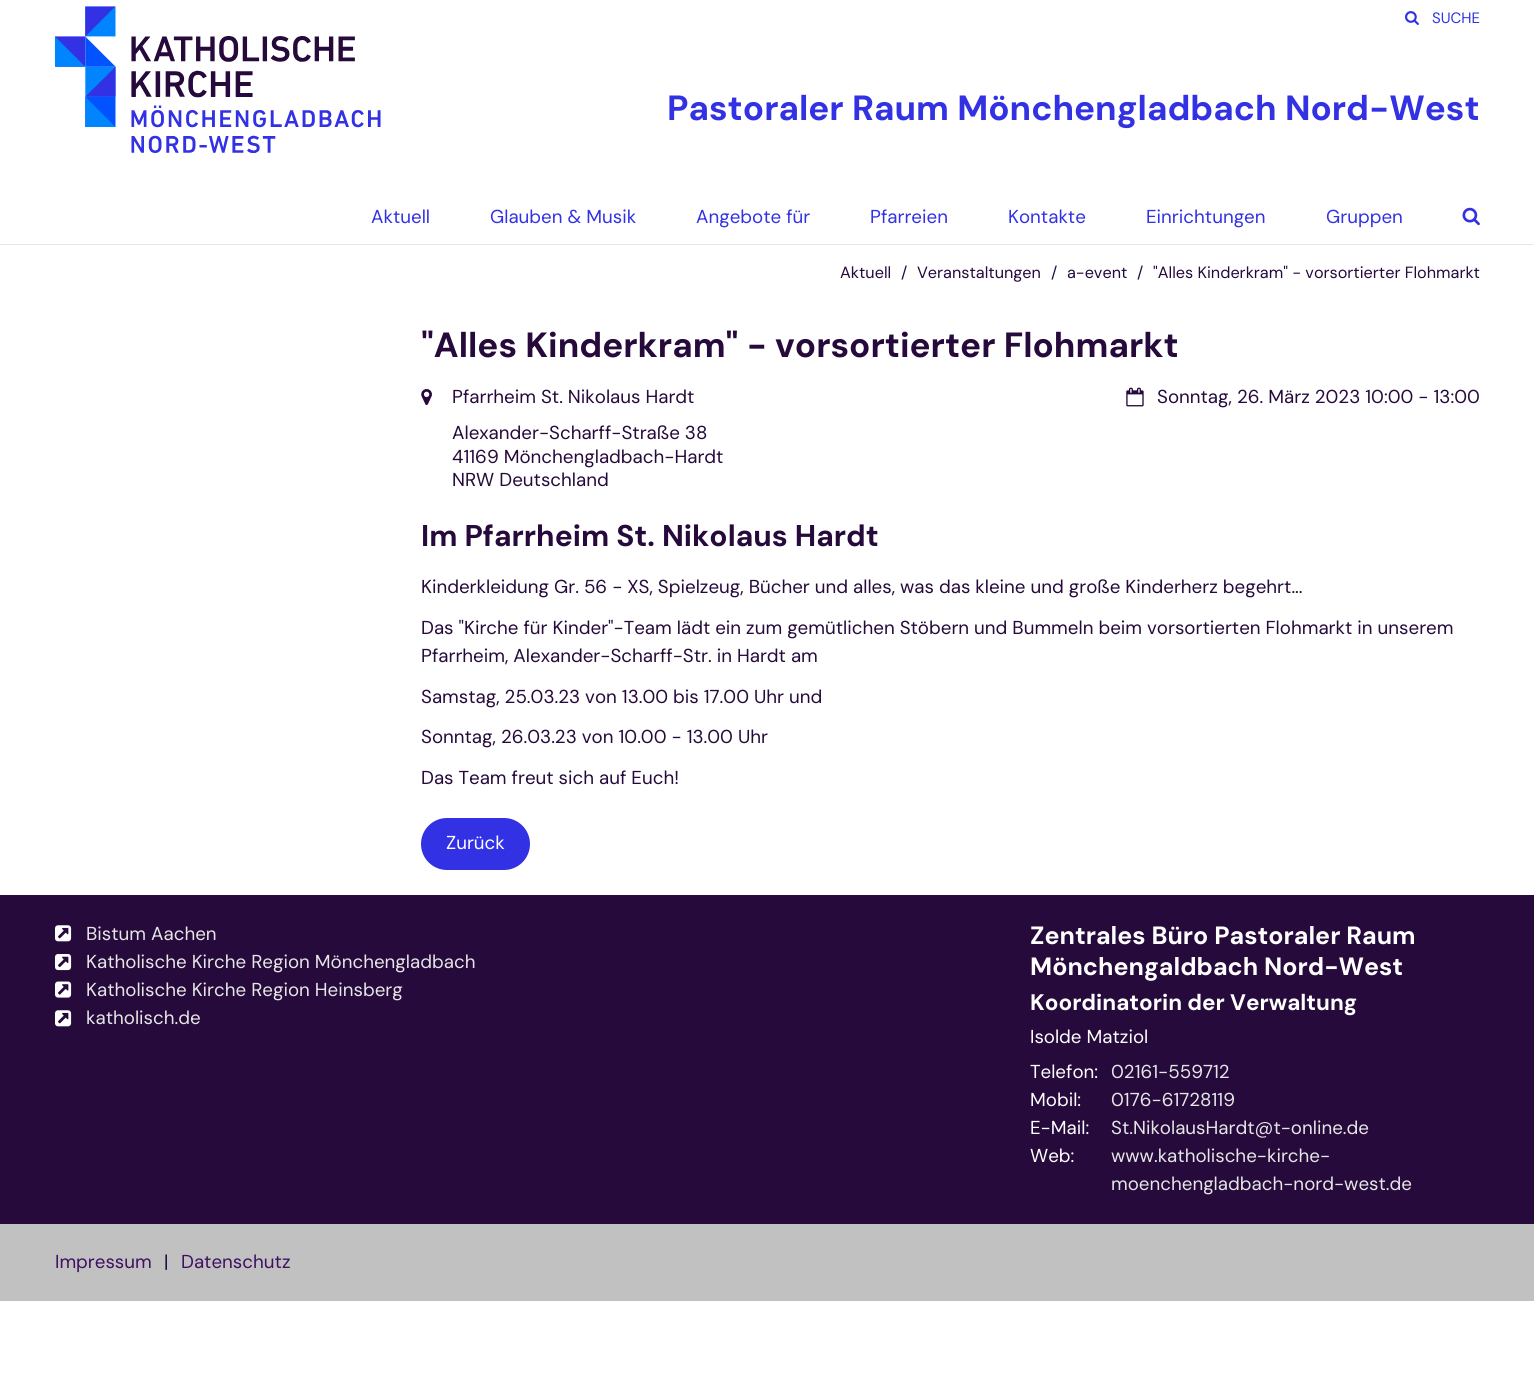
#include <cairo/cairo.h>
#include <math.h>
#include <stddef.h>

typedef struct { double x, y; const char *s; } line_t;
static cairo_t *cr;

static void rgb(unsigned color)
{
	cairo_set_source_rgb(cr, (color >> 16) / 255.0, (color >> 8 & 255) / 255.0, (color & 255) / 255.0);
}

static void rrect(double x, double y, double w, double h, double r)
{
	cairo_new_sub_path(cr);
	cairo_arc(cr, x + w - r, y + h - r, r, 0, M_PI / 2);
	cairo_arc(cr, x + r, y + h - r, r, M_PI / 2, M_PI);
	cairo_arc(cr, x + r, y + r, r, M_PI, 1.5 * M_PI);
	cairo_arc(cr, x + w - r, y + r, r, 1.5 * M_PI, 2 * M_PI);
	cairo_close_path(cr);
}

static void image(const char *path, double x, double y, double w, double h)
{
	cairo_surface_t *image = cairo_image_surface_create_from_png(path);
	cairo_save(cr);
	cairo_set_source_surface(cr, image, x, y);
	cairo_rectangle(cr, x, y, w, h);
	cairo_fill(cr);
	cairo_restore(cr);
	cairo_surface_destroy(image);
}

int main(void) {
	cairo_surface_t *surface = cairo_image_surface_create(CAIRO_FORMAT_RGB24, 1534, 1382);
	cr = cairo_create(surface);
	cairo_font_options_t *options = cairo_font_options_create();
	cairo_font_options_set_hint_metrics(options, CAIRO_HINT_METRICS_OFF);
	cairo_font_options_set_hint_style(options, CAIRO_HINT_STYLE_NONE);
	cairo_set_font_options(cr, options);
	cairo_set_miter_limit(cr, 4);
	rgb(0xffffff);
	cairo_paint(cr);
	rgb(0xe8e6ea);
	cairo_rectangle(cr, 0, 244, 1534, 1);
	cairo_fill(cr);
	image("img/1.png", 55, 6, 326, 147);
	image("img/2.png", 1405, 11, 14, 14);
	image("img/3.png", 1462, 207, 18, 19);
	image("img/4.png", 421, 389, 11, 17);
	image("img/5.png", 1126, 387, 18, 20);
	rgb(0x3231e4);
	rrect(421, 818, 109, 52, 26);
	cairo_fill(cr);
	rgb(0x260a3b);
	cairo_rectangle(cr, 0, 895, 1534, 329);
	cairo_fill(cr);
	image("img/6.png", 55, 925, 17, 17);
	image("img/7.png", 55, 954, 17, 17);
	image("img/8.png", 55, 981, 17, 17);
	image("img/6.png", 55, 1010, 17, 17);
	rgb(0xc1c1c1);
	cairo_rectangle(cr, 0, 1224, 1534, 77);
	cairo_fill(cr);
	cairo_select_font_face(cr, "DM Sans", CAIRO_FONT_SLANT_NORMAL, CAIRO_FONT_WEIGHT_NORMAL);
	cairo_set_font_size(cr, 15);
	rgb(0x3231e4);
	cairo_move_to(cr, 1432, 23);
	cairo_show_text(cr, "SUCHE");
	cairo_select_font_face(cr, "DM Sans", CAIRO_FONT_SLANT_NORMAL, CAIRO_FONT_WEIGHT_BOLD);
	cairo_set_font_size(cr, 35);
	cairo_move_to(cr, 667, 120);
	cairo_show_text(cr, "Pastoraler Raum Mönchengladbach Nord-West");
	cairo_select_font_face(cr, "DM Sans", CAIRO_FONT_SLANT_NORMAL, CAIRO_FONT_WEIGHT_NORMAL);
	cairo_set_font_size(cr, 18.75);
	{
		static const line_t items[] = {
			{371, 223, "Aktuell"},
			{490, 223, "Glauben & Musik"},
			{696, 223, "Angebote für"},
			{870, 223, "Pfarreien"},
			{1008, 223, "Kontakte"},
			{1146, 223, "Einrichtungen"},
			{1326, 223, "Gruppen"},
		};
		for (size_t i = 0; i < sizeof items / sizeof *items; i++) {
			cairo_move_to(cr, items[i].x, items[i].y);
			cairo_show_text(cr, items[i].s);
		}
	}
	cairo_set_font_size(cr, 16.25);
	rgb(0x260a3b);
	{
		static const line_t items[] = {
			{840, 278, "Aktuell"},
			{901, 278, "/"},
			{917, 278, "Veranstaltungen"},
			{1051, 278, "/"},
			{1067, 278, "a-event"},
			{1137, 278, "/"},
			{1153, 278, "\"Alles Kinderkram\" - vorsortierter Flohmarkt"},
		};
		for (size_t i = 0; i < sizeof items / sizeof *items; i++) {
			cairo_move_to(cr, items[i].x, items[i].y);
			cairo_show_text(cr, items[i].s);
		}
	}
	cairo_select_font_face(cr, "DM Sans", CAIRO_FONT_SLANT_NORMAL, CAIRO_FONT_WEIGHT_BOLD);
	cairo_set_font_size(cr, 35);
	cairo_move_to(cr, 421, 357);
	cairo_show_text(cr, "\"Alles Kinderkram\" - vorsortierter Flohmarkt");
	cairo_select_font_face(cr, "DM Sans", CAIRO_FONT_SLANT_NORMAL, CAIRO_FONT_WEIGHT_NORMAL);
	cairo_set_font_size(cr, 18.75);
	{
		static const line_t items[] = {
			{452, 403, "Pfarrheim St. Nikolaus Hardt"},
			{452, 439, "Alexander-Scharff-Straße 38"},
			{452, 463, "41169 Mönchengladbach-Hardt"},
			{452, 486, "NRW Deutschland"},
			{1157, 403, "Sonntag, 26. März 2023 10:00 - 13:00"},
		};
		for (size_t i = 0; i < sizeof items / sizeof *items; i++) {
			cairo_move_to(cr, items[i].x, items[i].y);
			cairo_show_text(cr, items[i].s);
		}
	}
	cairo_select_font_face(cr, "DM Sans", CAIRO_FONT_SLANT_NORMAL, CAIRO_FONT_WEIGHT_BOLD);
	cairo_set_font_size(cr, 30);
	cairo_move_to(cr, 421, 546);
	cairo_show_text(cr, "Im Pfarrheim St. Nikolaus Hardt");
	cairo_select_font_face(cr, "DM Sans", CAIRO_FONT_SLANT_NORMAL, CAIRO_FONT_WEIGHT_NORMAL);
	cairo_set_font_size(cr, 18.75);
	{
		static const line_t items[] = {
			{421, 593, "Kinderkleidung Gr. 56 - XS, Spielzeug, Bücher und alles, was das kleine und große Kinderherz begehrt..."},
			{421, 634, "Das \"Kirche für Kinder\"-Team lädt ein zum gemütlichen Stöbern und Bummeln beim vorsortierten Flohmarkt in unserem"},
			{421, 662, "Pfarrheim, Alexander-Scharff-Str. in Hardt am"},
			{421, 703, "Samstag, 25.03.23 von 13.00 bis 17.00 Uhr und"},
			{421, 743, "Sonntag, 26.03.23 von 10.00 - 13.00 Uhr"},
			{421, 784, "Das Team freut sich auf Euch!"},
		};
		for (size_t i = 0; i < sizeof items / sizeof *items; i++) {
			cairo_move_to(cr, items[i].x, items[i].y);
			cairo_show_text(cr, items[i].s);
		}
	}
	rgb(0xffffff);
	cairo_move_to(cr, 446, 849);
	cairo_show_text(cr, "Zurück");
	rgb(0xe6e6e6);
	{
		static const line_t items[] = {
			{86, 940, "Bistum Aachen"},
			{86, 968, "Katholische Kirche Region Mönchengladbach"},
			{86, 996, "Katholische Kirche Region Heinsberg"},
			{86, 1024, "katholisch.de"},
		};
		for (size_t i = 0; i < sizeof items / sizeof *items; i++) {
			cairo_move_to(cr, items[i].x, items[i].y);
			cairo_show_text(cr, items[i].s);
		}
	}
	cairo_select_font_face(cr, "DM Sans", CAIRO_FONT_SLANT_NORMAL, CAIRO_FONT_WEIGHT_BOLD);
	cairo_set_font_size(cr, 25);
	rgb(0xffffff);
	cairo_move_to(cr, 1030, 944);
	cairo_show_text(cr, "Zentrales Büro Pastoraler Raum");
	cairo_move_to(cr, 1030, 975);
	cairo_show_text(cr, "Mönchengaldbach Nord-West");
	cairo_set_font_size(cr, 22.5);
	cairo_move_to(cr, 1030, 1010);
	cairo_show_text(cr, "Koordinatorin der Verwaltung");
	cairo_select_font_face(cr, "DM Sans", CAIRO_FONT_SLANT_NORMAL, CAIRO_FONT_WEIGHT_NORMAL);
	cairo_set_font_size(cr, 18.75);
	cairo_move_to(cr, 1030, 1043);
	cairo_show_text(cr, "Isolde Matziol");
	cairo_move_to(cr, 1030, 1078);
	cairo_show_text(cr, "Telefon:");
	rgb(0xe6e6e6);
	cairo_move_to(cr, 1111, 1078);
	cairo_show_text(cr, "02161-559712");
	rgb(0xffffff);
	cairo_move_to(cr, 1030, 1106);
	cairo_show_text(cr, "Mobil:");
	rgb(0xe6e6e6);
	cairo_move_to(cr, 1111, 1106);
	cairo_show_text(cr, "0176-61728119");
	rgb(0xffffff);
	cairo_move_to(cr, 1030, 1134);
	cairo_show_text(cr, "E-Mail:");
	rgb(0xe6e6e6);
	cairo_move_to(cr, 1111, 1134);
	cairo_show_text(cr, "St.NikolausHardt@t-online.de");
	rgb(0xffffff);
	cairo_move_to(cr, 1030, 1162);
	cairo_show_text(cr, "Web:");
	rgb(0xe6e6e6);
	cairo_move_to(cr, 1111, 1162);
	cairo_show_text(cr, "www.katholische-kirche-");
	cairo_move_to(cr, 1111, 1190);
	cairo_show_text(cr, "moenchengladbach-nord-west.de");
	rgb(0x3e1061);
	cairo_move_to(cr, 55, 1268);
	cairo_show_text(cr, "Impressum");
	rgb(0x260a3b);
	cairo_move_to(cr, 164, 1268);
	cairo_show_text(cr, "|");
	rgb(0x3e1061);
	cairo_move_to(cr, 181, 1268);
	cairo_show_text(cr, "Datenschutz");
	cairo_surface_write_to_png(surface, "page.png");
	cairo_font_options_destroy(options);
	cairo_destroy(cr);
	cairo_surface_destroy(surface);
	return 0;
}
